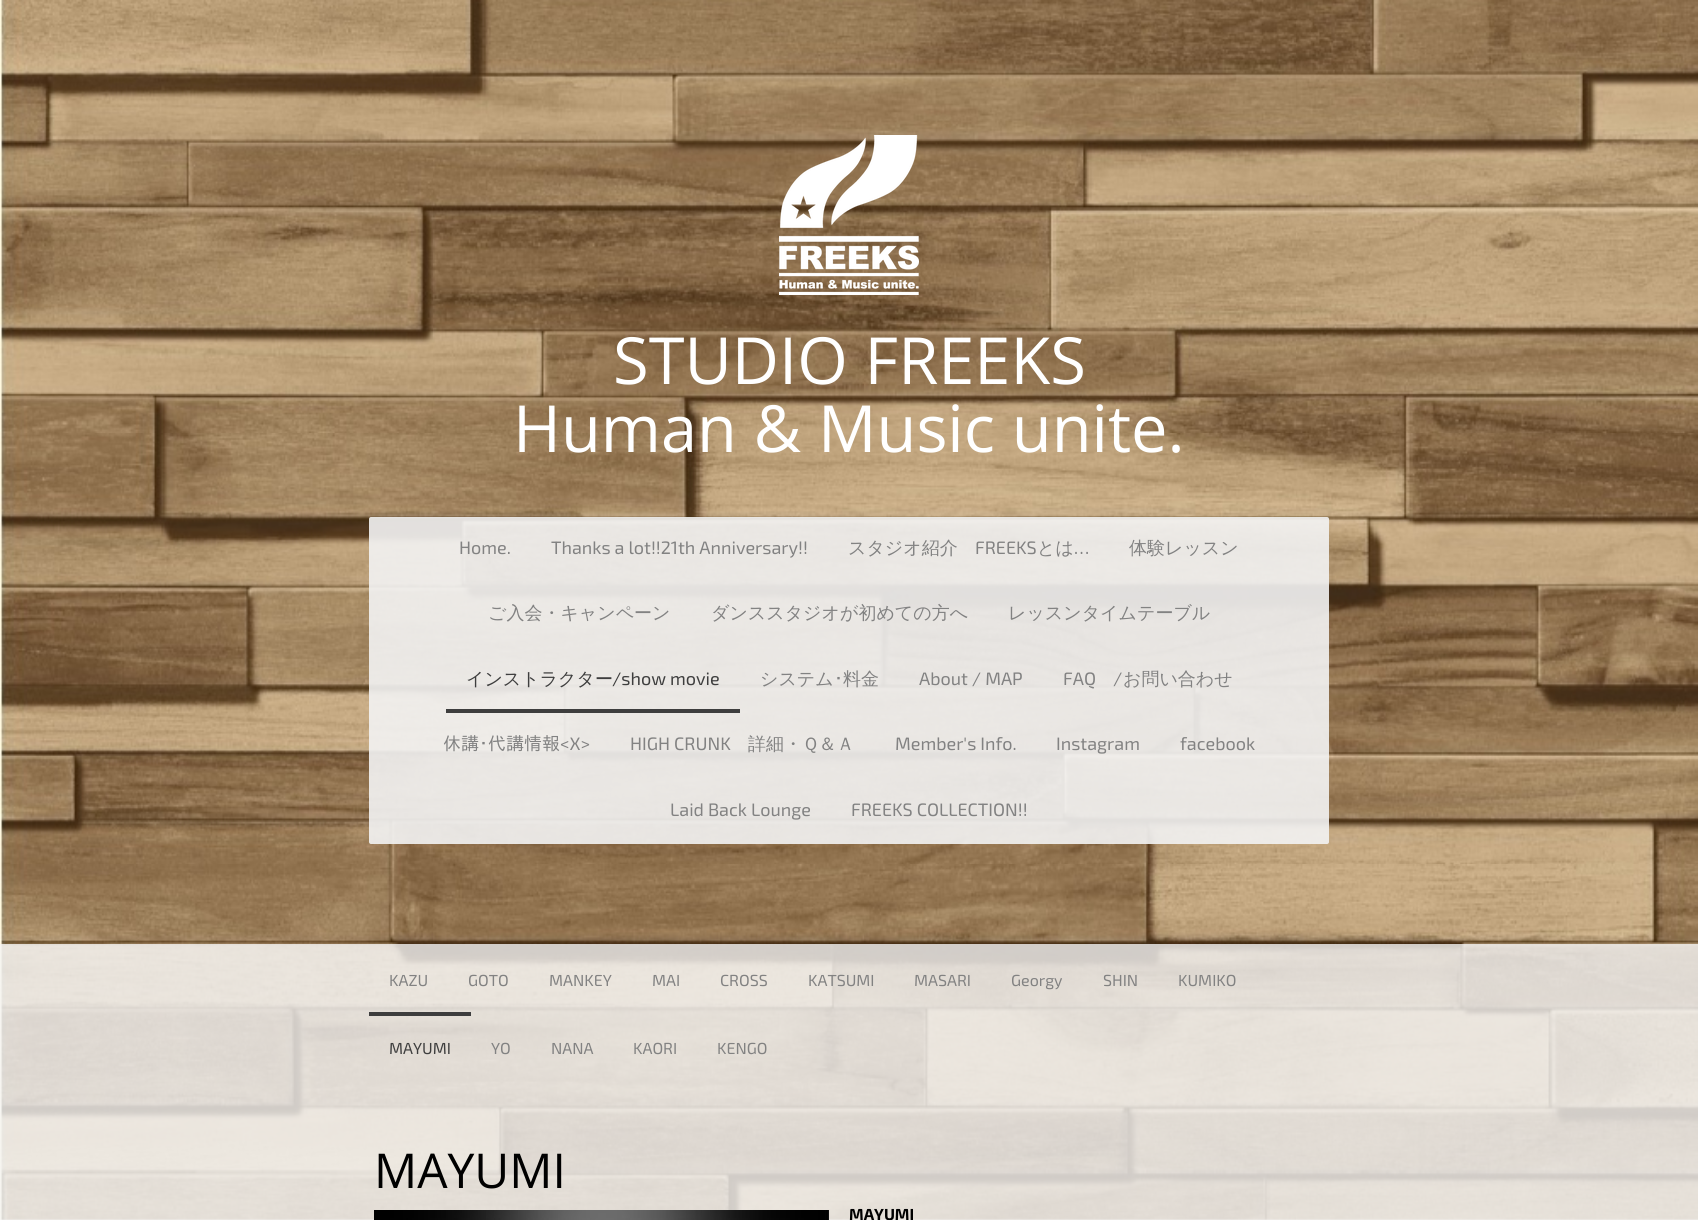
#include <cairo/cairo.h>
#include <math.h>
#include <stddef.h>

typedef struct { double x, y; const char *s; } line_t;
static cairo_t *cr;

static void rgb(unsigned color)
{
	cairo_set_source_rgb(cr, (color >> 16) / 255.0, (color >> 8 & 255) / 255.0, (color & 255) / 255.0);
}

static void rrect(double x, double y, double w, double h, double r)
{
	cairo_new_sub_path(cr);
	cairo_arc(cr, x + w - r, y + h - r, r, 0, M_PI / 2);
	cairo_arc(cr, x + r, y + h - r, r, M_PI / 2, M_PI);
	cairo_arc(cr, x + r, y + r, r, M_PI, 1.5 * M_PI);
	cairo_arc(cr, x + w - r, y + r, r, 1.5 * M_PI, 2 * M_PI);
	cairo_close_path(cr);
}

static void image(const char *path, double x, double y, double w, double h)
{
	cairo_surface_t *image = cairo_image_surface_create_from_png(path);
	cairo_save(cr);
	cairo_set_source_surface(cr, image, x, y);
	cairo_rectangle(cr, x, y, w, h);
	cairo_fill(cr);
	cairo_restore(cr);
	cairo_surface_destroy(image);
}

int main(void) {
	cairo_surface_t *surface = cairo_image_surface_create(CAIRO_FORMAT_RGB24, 1698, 1220);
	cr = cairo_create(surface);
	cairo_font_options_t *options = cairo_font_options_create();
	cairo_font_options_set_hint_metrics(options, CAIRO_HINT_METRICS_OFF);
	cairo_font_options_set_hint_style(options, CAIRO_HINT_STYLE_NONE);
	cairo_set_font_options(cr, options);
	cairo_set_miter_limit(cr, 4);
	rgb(0xffffff);
	cairo_paint(cr);
	image("img/1.png", 0, 0, 1698, 1220);
	image("img/2.png", 779, 135, 140, 160);
	cairo_set_source_rgba(cr, 0.953, 0.953, 0.953, 0.9);
	rrect(369, 517, 960, 327, 2);
	cairo_fill(cr);
	rgb(0x3e3e3e);
	cairo_rectangle(cr, 446, 709, 294, 4);
	cairo_fill(cr);
	cairo_set_source_rgba(cr, 0.953, 0.953, 0.953, 0.8);
	cairo_rectangle(cr, 0, 944, 1698, 136);
	cairo_fill(cr);
	rgb(0x3e3e3e);
	cairo_rectangle(cr, 369, 1012, 102, 4);
	cairo_fill(cr);
	cairo_set_source_rgba(cr, 0.953, 0.953, 0.953, 0.8);
	cairo_rectangle(cr, 0, 1080, 1698, 140);
	cairo_fill(cr);
	image("img/3.png", 374, 1210, 455, 10);
	cairo_select_font_face(cr, "Open Sans", CAIRO_FONT_SLANT_NORMAL, CAIRO_FONT_WEIGHT_NORMAL);
	cairo_set_font_size(cr, 65);
	rgb(0xffffff);
	cairo_move_to(cr, 613, 384);
	cairo_show_text(cr, "STUDIO FREEKS");
	cairo_move_to(cr, 513, 452);
	cairo_show_text(cr, "Human & Music unite.");
	cairo_select_font_face(cr, "Exo 2", CAIRO_FONT_SLANT_NORMAL, CAIRO_FONT_WEIGHT_NORMAL);
	cairo_set_font_size(cr, 18);
	rgb(0x828282);
	cairo_move_to(cr, 459, 554);
	cairo_show_text(cr, "Home.");
	cairo_move_to(cr, 551, 554);
	cairo_show_text(cr, "Thanks a lot!!21th Anniversary!!");
	cairo_select_font_face(cr, "WenQuanYi Zen Hei Medium", CAIRO_FONT_SLANT_NORMAL, CAIRO_FONT_WEIGHT_NORMAL);
	cairo_move_to(cr, 848, 554);
	cairo_show_text(cr, "スタジオ紹介");
	cairo_select_font_face(cr, "Exo 2", CAIRO_FONT_SLANT_NORMAL, CAIRO_FONT_WEIGHT_NORMAL);
	cairo_move_to(cr, 975, 554);
	cairo_show_text(cr, "FREEKS");
	cairo_select_font_face(cr, "WenQuanYi Zen Hei Medium", CAIRO_FONT_SLANT_NORMAL, CAIRO_FONT_WEIGHT_NORMAL);
	cairo_move_to(cr, 1037, 554);
	cairo_show_text(cr, "とは");
	cairo_select_font_face(cr, "Exo 2", CAIRO_FONT_SLANT_NORMAL, CAIRO_FONT_WEIGHT_NORMAL);
	cairo_move_to(cr, 1074, 554);
	cairo_show_text(cr, "…");
	cairo_select_font_face(cr, "WenQuanYi Zen Hei Medium", CAIRO_FONT_SLANT_NORMAL, CAIRO_FONT_WEIGHT_NORMAL);
	{
		static const line_t items[] = {
			{1129, 554, "体験レッスン"},
			{488, 619, "ご入会・キャンペーン"},
			{711, 619, "ダンススタジオが初めての方へ"},
			{1008, 619, "レッスンタイムテーブル"},
		};
		for (size_t i = 0; i < sizeof items / sizeof *items; i++) {
			cairo_move_to(cr, items[i].x, items[i].y);
			cairo_show_text(cr, items[i].s);
		}
	}
	rgb(0x3e3e3e);
	cairo_move_to(cr, 466, 685);
	cairo_show_text(cr, "インストラクター");
	cairo_select_font_face(cr, "Exo 2", CAIRO_FONT_SLANT_NORMAL, CAIRO_FONT_WEIGHT_NORMAL);
	cairo_move_to(cr, 612, 685);
	cairo_show_text(cr, "/show movie");
	cairo_select_font_face(cr, "WenQuanYi Zen Hei Medium", CAIRO_FONT_SLANT_NORMAL, CAIRO_FONT_WEIGHT_NORMAL);
	rgb(0x828282);
	cairo_move_to(cr, 760, 685);
	cairo_show_text(cr, "システム");
	cairo_select_font_face(cr, "IPAPGothic", CAIRO_FONT_SLANT_NORMAL, CAIRO_FONT_WEIGHT_NORMAL);
	cairo_move_to(cr, 834, 685);
	cairo_show_text(cr, "･");
	cairo_select_font_face(cr, "WenQuanYi Zen Hei Medium", CAIRO_FONT_SLANT_NORMAL, CAIRO_FONT_WEIGHT_NORMAL);
	cairo_move_to(cr, 843, 685);
	cairo_show_text(cr, "料金");
	cairo_select_font_face(cr, "Exo 2", CAIRO_FONT_SLANT_NORMAL, CAIRO_FONT_WEIGHT_NORMAL);
	{
		static const line_t items[] = {
			{919, 685, "About / MAP"},
			{1063, 685, "FAQ"},
			{1113, 685, "/"},
		};
		for (size_t i = 0; i < sizeof items / sizeof *items; i++) {
			cairo_move_to(cr, items[i].x, items[i].y);
			cairo_show_text(cr, items[i].s);
		}
	}
	cairo_select_font_face(cr, "WenQuanYi Zen Hei Medium", CAIRO_FONT_SLANT_NORMAL, CAIRO_FONT_WEIGHT_NORMAL);
	cairo_move_to(cr, 1123, 685);
	cairo_show_text(cr, "お問い合わせ");
	cairo_select_font_face(cr, "IPAPGothic", CAIRO_FONT_SLANT_NORMAL, CAIRO_FONT_WEIGHT_NORMAL);
	cairo_move_to(cr, 443, 750);
	cairo_show_text(cr, "休講･代講情報");
	cairo_select_font_face(cr, "Exo 2", CAIRO_FONT_SLANT_NORMAL, CAIRO_FONT_WEIGHT_NORMAL);
	cairo_move_to(cr, 560, 750);
	cairo_show_text(cr, "<X>");
	cairo_move_to(cr, 630, 750);
	cairo_show_text(cr, "HIGH CRUNK");
	cairo_select_font_face(cr, "WenQuanYi Zen Hei Medium", CAIRO_FONT_SLANT_NORMAL, CAIRO_FONT_WEIGHT_NORMAL);
	cairo_move_to(cr, 748, 750);
	cairo_show_text(cr, "詳細・Ｑ＆Ａ");
	cairo_select_font_face(cr, "Exo 2", CAIRO_FONT_SLANT_NORMAL, CAIRO_FONT_WEIGHT_NORMAL);
	{
		static const line_t items[] = {
			{895, 750, "Member's Info."},
			{1056, 750, "Instagram"},
			{1180, 750, "facebook"},
			{670, 816, "Laid Back Lounge"},
			{851, 816, "FREEKS COLLECTION!!"},
		};
		for (size_t i = 0; i < sizeof items / sizeof *items; i++) {
			cairo_move_to(cr, items[i].x, items[i].y);
			cairo_show_text(cr, items[i].s);
		}
	}
	cairo_set_font_size(cr, 16);
	{
		static const line_t items[] = {
			{389, 986, "KAZU"},
			{468, 986, "GOTO"},
			{549, 986, "MANKEY"},
			{652, 986, "MAI"},
			{720, 986, "CROSS"},
			{808, 986, "KATSUMI"},
			{914, 986, "MASARI"},
			{1011, 986, "Georgy"},
			{1103, 986, "SHIN"},
			{1178, 986, "KUMIKO"},
		};
		for (size_t i = 0; i < sizeof items / sizeof *items; i++) {
			cairo_move_to(cr, items[i].x, items[i].y);
			cairo_show_text(cr, items[i].s);
		}
	}
	rgb(0x3e3e3e);
	cairo_move_to(cr, 389, 1054);
	cairo_show_text(cr, "MAYUMI");
	rgb(0x828282);
	{
		static const line_t items[] = {
			{491, 1054, "YO"},
			{551, 1054, "NANA"},
			{633, 1054, "KAORI"},
			{717, 1054, "KENGO"},
		};
		for (size_t i = 0; i < sizeof items / sizeof *items; i++) {
			cairo_move_to(cr, items[i].x, items[i].y);
			cairo_show_text(cr, items[i].s);
		}
	}
	cairo_select_font_face(cr, "Open Sans", CAIRO_FONT_SLANT_NORMAL, CAIRO_FONT_WEIGHT_NORMAL);
	cairo_set_font_size(cr, 48);
	rgb(0x000000);
	cairo_move_to(cr, 374, 1188);
	cairo_show_text(cr, "MAYUMI");
	cairo_select_font_face(cr, "Exo 2", CAIRO_FONT_SLANT_NORMAL, CAIRO_FONT_WEIGHT_BOLD);
	cairo_set_font_size(cr, 16);
	cairo_move_to(cr, 849, 1220);
	cairo_show_text(cr, "MAYUMI");
	cairo_surface_write_to_png(surface, "page.png");
	cairo_font_options_destroy(options);
	cairo_destroy(cr);
	cairo_surface_destroy(surface);
	return 0;
}
